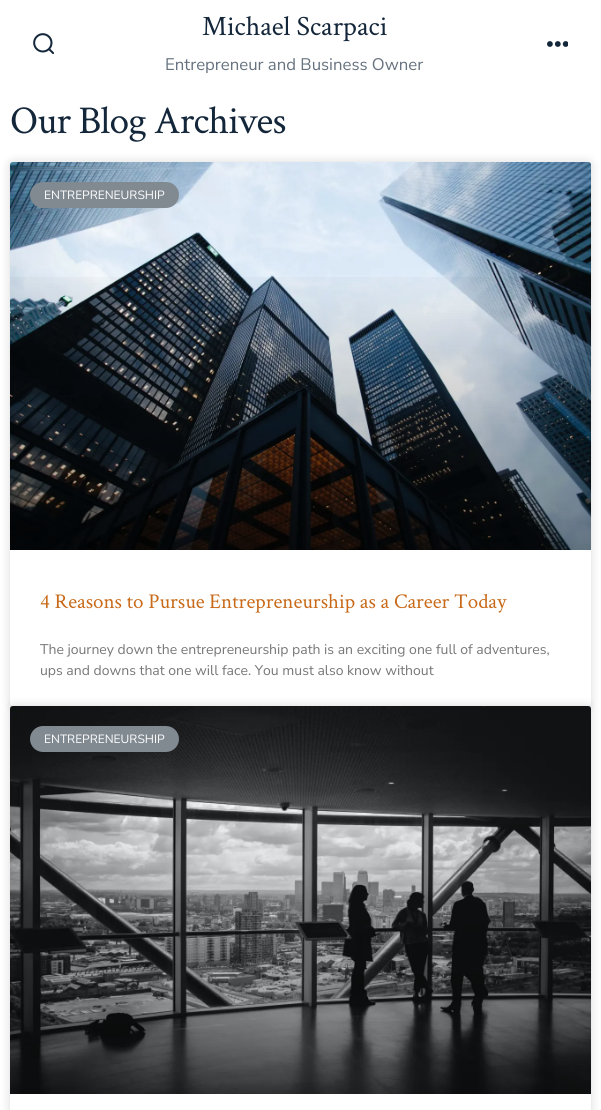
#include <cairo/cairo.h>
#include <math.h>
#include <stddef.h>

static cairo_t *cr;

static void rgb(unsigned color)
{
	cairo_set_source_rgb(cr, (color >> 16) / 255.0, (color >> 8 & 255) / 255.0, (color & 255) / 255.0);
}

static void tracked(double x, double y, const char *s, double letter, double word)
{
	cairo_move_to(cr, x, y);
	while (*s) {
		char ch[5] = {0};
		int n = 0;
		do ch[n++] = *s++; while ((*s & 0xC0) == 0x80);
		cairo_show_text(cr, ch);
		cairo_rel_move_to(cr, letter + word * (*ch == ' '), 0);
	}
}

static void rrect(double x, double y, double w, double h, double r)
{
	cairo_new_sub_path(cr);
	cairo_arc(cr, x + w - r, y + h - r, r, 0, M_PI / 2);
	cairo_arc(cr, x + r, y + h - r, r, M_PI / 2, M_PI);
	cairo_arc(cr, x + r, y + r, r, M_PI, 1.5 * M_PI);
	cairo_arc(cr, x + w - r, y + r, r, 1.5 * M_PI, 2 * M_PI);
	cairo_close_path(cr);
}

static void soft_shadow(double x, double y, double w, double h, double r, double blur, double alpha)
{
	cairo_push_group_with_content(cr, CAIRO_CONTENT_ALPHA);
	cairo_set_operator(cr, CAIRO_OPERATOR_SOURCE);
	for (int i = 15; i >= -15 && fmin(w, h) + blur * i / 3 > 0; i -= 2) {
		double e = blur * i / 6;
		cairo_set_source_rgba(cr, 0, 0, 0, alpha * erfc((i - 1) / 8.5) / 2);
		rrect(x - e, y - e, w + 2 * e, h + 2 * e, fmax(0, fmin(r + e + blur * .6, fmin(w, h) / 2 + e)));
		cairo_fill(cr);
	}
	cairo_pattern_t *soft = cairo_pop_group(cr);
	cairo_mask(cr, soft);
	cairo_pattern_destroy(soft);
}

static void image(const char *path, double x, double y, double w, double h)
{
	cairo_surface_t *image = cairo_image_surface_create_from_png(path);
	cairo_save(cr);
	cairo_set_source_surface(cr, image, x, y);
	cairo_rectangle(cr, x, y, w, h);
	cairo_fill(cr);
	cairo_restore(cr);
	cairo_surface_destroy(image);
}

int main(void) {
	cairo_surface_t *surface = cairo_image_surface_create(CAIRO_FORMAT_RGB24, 601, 1110);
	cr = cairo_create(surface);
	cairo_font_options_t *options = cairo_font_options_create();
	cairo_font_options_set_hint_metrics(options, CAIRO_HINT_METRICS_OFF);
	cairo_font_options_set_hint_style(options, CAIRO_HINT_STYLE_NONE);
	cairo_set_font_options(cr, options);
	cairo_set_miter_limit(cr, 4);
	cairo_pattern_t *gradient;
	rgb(0xffffff);
	cairo_paint(cr);
	image("img/1.png", 33, 33, 21, 21);
	image("img/2.png", 547, 41, 21, 6);
	rgb(0x000000);
	soft_shadow(10, 162, 581, 544, 3, 5, 0.15);
	rgb(0xffffff);
	rrect(10, 162, 581, 544, 3);
	cairo_fill(cr);
	image("img/3.png", 10, 162, 581, 388);
	gradient = cairo_pattern_create_linear(301, 550, 301, 162);
	cairo_pattern_add_color_stop_rgba(gradient, 0, 0, 0, 0, 0.35);
	cairo_pattern_add_color_stop_rgba(gradient, 0.75, 0, 0, 0, 0);
	cairo_set_source(cr, gradient);
	cairo_pattern_destroy(gradient);
	cairo_rectangle(cr, 10, 277, 581, 273);
	cairo_fill(cr);
	rgb(0x818a91);
	rrect(30, 182, 149, 26, 13);
	cairo_fill(cr);
	rgb(0x000000);
	soft_shadow(10, 706, 581, 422, 3, 5, 0.15);
	rgb(0xffffff);
	rrect(10, 706, 581, 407, 3);
	cairo_fill(cr);
	image("img/4.png", 10, 706, 581, 388);
	gradient = cairo_pattern_create_linear(301, 1094, 301, 706);
	cairo_pattern_add_color_stop_rgba(gradient, 0, 0, 0, 0, 0.35);
	cairo_pattern_add_color_stop_rgba(gradient, 0.75, 0, 0, 0, 0);
	cairo_set_source(cr, gradient);
	cairo_pattern_destroy(gradient);
	cairo_rectangle(cr, 10, 821, 581, 273);
	cairo_fill(cr);
	rgb(0x818a91);
	rrect(30, 726, 149, 26, 13);
	cairo_fill(cr);
	cairo_select_font_face(cr, "Crimson Text", CAIRO_FONT_SLANT_NORMAL, CAIRO_FONT_WEIGHT_NORMAL);
	cairo_set_font_size(cr, 28);
	rgb(0x13263a);
	cairo_move_to(cr, 202, 35);
	cairo_show_text(cr, "Michael Scarpaci");
	cairo_select_font_face(cr, "Nunito Sans", CAIRO_FONT_SLANT_NORMAL, CAIRO_FONT_WEIGHT_NORMAL);
	cairo_set_font_size(cr, 16.75);
	rgb(0x66727f);
	cairo_move_to(cr, 165, 70);
	cairo_show_text(cr, "Entrepreneur and Business Owner");
	cairo_select_font_face(cr, "Crimson Text", CAIRO_FONT_SLANT_NORMAL, CAIRO_FONT_WEIGHT_NORMAL);
	cairo_set_font_size(cr, 39.5);
	rgb(0x13263a);
	tracked(10, 133, "Our Blog Archives", -0.75, 0);
	cairo_select_font_face(cr, "Nunito Sans", CAIRO_FONT_SLANT_NORMAL, CAIRO_FONT_WEIGHT_NORMAL);
	cairo_set_font_size(cr, 12);
	rgb(0xffffff);
	cairo_move_to(cr, 44, 199);
	cairo_show_text(cr, "ENTREPRENEURSHIP");
	cairo_select_font_face(cr, "Crimson Text", CAIRO_FONT_SLANT_NORMAL, CAIRO_FONT_WEIGHT_NORMAL);
	cairo_set_font_size(cr, 21);
	rgb(0xc86a19);
	cairo_move_to(cr, 40, 608);
	cairo_show_text(cr, "4 Reasons to Pursue Entrepreneurship as a Career Today");
	cairo_select_font_face(cr, "Nunito Sans", CAIRO_FONT_SLANT_NORMAL, CAIRO_FONT_WEIGHT_NORMAL);
	cairo_set_font_size(cr, 14);
	rgb(0x777777);
	cairo_move_to(cr, 40, 654);
	cairo_show_text(cr, "The journey down the entrepreneurship path is an exciting one full of adventures,");
	cairo_move_to(cr, 40, 675);
	cairo_show_text(cr, "ups and downs that one will face. You must also know without");
	cairo_set_font_size(cr, 12);
	rgb(0xffffff);
	cairo_move_to(cr, 44, 743);
	cairo_show_text(cr, "ENTREPRENEURSHIP");
	cairo_surface_write_to_png(surface, "page.png");
	cairo_font_options_destroy(options);
	cairo_destroy(cr);
	cairo_surface_destroy(surface);
	return 0;
}
